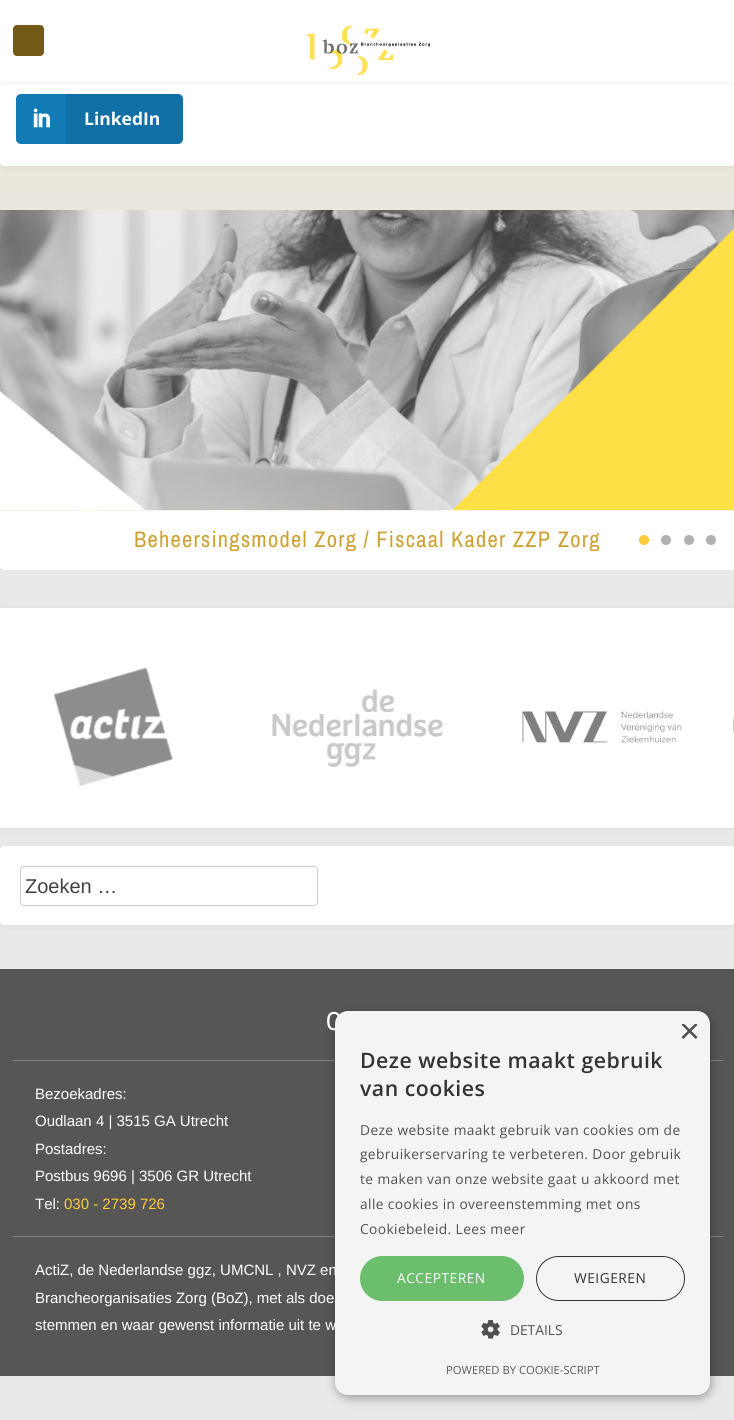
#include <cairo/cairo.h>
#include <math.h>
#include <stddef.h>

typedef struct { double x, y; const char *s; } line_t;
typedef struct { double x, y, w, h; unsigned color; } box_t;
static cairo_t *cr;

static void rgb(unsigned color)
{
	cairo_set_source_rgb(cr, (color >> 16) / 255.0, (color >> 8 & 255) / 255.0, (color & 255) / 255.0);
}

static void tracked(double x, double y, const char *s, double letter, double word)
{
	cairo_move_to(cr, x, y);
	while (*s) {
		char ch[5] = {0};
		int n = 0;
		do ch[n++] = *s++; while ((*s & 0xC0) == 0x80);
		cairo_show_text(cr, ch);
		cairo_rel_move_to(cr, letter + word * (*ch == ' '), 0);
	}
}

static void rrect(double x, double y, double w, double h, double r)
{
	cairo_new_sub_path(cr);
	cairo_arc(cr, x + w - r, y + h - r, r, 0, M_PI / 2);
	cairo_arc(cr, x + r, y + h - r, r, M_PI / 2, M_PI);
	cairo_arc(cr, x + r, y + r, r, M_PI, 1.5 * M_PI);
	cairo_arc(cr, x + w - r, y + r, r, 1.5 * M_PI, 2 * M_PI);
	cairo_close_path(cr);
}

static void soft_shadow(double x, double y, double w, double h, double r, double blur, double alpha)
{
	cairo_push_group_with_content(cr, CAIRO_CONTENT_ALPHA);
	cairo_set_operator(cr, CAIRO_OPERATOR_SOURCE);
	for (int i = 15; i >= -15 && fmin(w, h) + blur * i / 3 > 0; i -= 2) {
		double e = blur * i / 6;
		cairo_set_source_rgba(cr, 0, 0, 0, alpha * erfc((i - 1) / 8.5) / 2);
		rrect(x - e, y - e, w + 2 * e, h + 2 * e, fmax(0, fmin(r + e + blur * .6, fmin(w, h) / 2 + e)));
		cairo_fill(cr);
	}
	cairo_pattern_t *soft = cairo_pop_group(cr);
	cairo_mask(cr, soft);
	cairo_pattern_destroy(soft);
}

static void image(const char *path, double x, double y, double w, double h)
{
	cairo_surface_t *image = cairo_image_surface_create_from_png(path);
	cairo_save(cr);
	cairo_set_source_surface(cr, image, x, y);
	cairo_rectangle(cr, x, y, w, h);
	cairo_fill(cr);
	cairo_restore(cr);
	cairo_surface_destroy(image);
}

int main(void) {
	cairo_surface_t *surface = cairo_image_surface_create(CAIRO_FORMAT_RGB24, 734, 1420);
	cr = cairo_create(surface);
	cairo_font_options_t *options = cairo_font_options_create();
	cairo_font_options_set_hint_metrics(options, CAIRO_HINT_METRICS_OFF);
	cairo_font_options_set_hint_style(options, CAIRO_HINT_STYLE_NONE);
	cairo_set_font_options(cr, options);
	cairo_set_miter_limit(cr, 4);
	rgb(0xe9e9e9);
	cairo_paint(cr);
	image("img/9.png", 0, 162, 734, 48);
	rgb(0x000000);
	soft_shadow(0, -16, 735, 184, 4, 4, 0.05);
	rgb(0xffffff);
	rrect(0, -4, 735, 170, 4);
	cairo_fill(cr);
	rgb(0x127bb6);
	rrect(16, 94, 167, 50, 5);
	cairo_fill(cr);
	cairo_set_source_rgba(cr, 0, 0, 0, 0.1);
	cairo_new_path(cr);
	cairo_move_to(cr, 66, 94);
	cairo_line_to(cr, 178, 94);
	cairo_curve_to(cr, 181, 94, 183, 96, 183, 99);
	cairo_line_to(cr, 183, 139);
	cairo_curve_to(cr, 183, 142, 181, 144, 178, 144);
	cairo_line_to(cr, 66, 144);
	cairo_close_path(cr);
	cairo_fill(cr);
	rgb(0x000000);
	soft_shadow(0, 1, 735, 82, 0, 4, 0.05);
	rgb(0xffffff);
	cairo_rectangle(cr, 0, 0, 734, 81);
	cairo_fill(cr);
	rgb(0x745a16);
	rrect(13, 25, 31, 31, 4);
	cairo_fill(cr);
	image("img/1.png", 306, 25, 124, 50);
	image("img/2.png", 33, 108, 17, 20);
	rgb(0xffffff);
	rrect(0, 210, 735, 360, 4);
	cairo_fill(cr);
	image("img/3.png", 0, 510, 734, 1);
	image("img/4.png", 0, 210, 734, 300);
	rgb(0xfeca3a);
	cairo_arc(cr, 644, 540, 5, 0, 2 * M_PI);
	cairo_fill(cr);
	rgb(0xb1b1b1);
	cairo_arc(cr, 666, 540, 5, 0, 2 * M_PI);
	cairo_fill(cr);
	cairo_arc(cr, 689, 540, 5, 0, 2 * M_PI);
	cairo_fill(cr);
	cairo_arc(cr, 711, 540, 5, 0, 2 * M_PI);
	cairo_fill(cr);
	rgb(0x000000);
	soft_shadow(0, 609, 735, 220, 0, 4, 0.05);
	rgb(0xffffff);
	cairo_rectangle(cr, 0, 608, 734, 220);
	cairo_fill(cr);
	image("img/5.png", 53, 667, 120, 120);
	image("img/6.png", 272, 689, 171, 78);
	image("img/7.png", 522, 711, 160, 32);
	image("img/8.png", 733, 717, 1, 15);
	rgb(0x000000);
	soft_shadow(0, 848, 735, 78, 4, 4, 0.05);
	rgb(0xffffff);
	rrect(0, 846, 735, 79, 4);
	cairo_fill(cr);
	rrect(20.5, 866.5, 297, 39, 3.5);
	rgb(0xcccccc);
	cairo_set_line_width(cr, 1);
	cairo_stroke(cr);
	{
		static const box_t items[] = {
			{0, 969, 734, 407, 0x565655},
			{13, 1060, 710, 1, 0x818180},
			{13, 1236, 710, 1, 0x818180},
		};
		for (size_t i = 0; i < sizeof items / sizeof *items; i++) {
			rgb(items[i].color);
			cairo_rectangle(cr, items[i].x, items[i].y, items[i].w, items[i].h);
			cairo_fill(cr);
		}
	}
	rgb(0x000000);
	soft_shadow(336, 1014, 375, 384, 13, 5, 0.35);
	cairo_select_font_face(cr, "Open Sans", CAIRO_FONT_SLANT_NORMAL, CAIRO_FONT_WEIGHT_BOLD);
	cairo_set_font_size(cr, 17.5);
	rgb(0xffffff);
	cairo_move_to(cr, 84, 125);
	cairo_show_text(cr, "LinkedIn");
	cairo_select_font_face(cr, "Archivo Narrow", CAIRO_FONT_SLANT_NORMAL, CAIRO_FONT_WEIGHT_NORMAL);
	cairo_set_font_size(cr, 22.5);
	rgb(0xcda132);
	tracked(134, 547, "Beheersingsmodel Zorg / Fiscaal Kader ZZP Zorg", 1.25, 0);
	cairo_select_font_face(cr, "Arimo", CAIRO_FONT_SLANT_NORMAL, CAIRO_FONT_WEIGHT_NORMAL);
	cairo_set_font_size(cr, 20);
	rgb(0x404040);
	cairo_move_to(cr, 25, 893);
	cairo_show_text(cr, "Zoeken …");
	cairo_select_font_face(cr, "Archivo Narrow", CAIRO_FONT_SLANT_NORMAL, CAIRO_FONT_WEIGHT_NORMAL);
	cairo_set_font_size(cr, 26);
	rgb(0xffffff);
	tracked(326, 1030, "C", 1.25, 0);
	cairo_select_font_face(cr, "Arimo", CAIRO_FONT_SLANT_NORMAL, CAIRO_FONT_WEIGHT_NORMAL);
	cairo_set_font_size(cr, 15);
	{
		static const line_t items[] = {
			{35, 1099, "Bezoekadres:"},
			{35, 1126, "Oudlaan 4 | 3515 GA Utrecht"},
			{35, 1154, "Postadres:"},
			{35, 1181, "Postbus 9696 | 3506 GR Utrecht"},
			{35, 1209, "Tel:"},
		};
		for (size_t i = 0; i < sizeof items / sizeof *items; i++) {
			cairo_move_to(cr, items[i].x, items[i].y);
			cairo_show_text(cr, items[i].s);
		}
	}
	rgb(0xfeca3a);
	cairo_move_to(cr, 64, 1209);
	cairo_show_text(cr, "030 - 2739 726");
	rgb(0xffffff);
	{
		static const line_t items[] = {
			{35, 1275, "ActiZ, de Nederlandse ggz, UMCNL , NVZ en"},
			{35, 1303, "Brancheorganisaties Zorg (BoZ), met als doe"},
			{35, 1330, "stemmen en waar gewenst informatie uit te w"},
		};
		for (size_t i = 0; i < sizeof items / sizeof *items; i++) {
			cairo_move_to(cr, items[i].x, items[i].y);
			cairo_show_text(cr, items[i].s);
		}
	}
	rgb(0xf4f4f4);
	rrect(335, 1011, 375, 384, 13);
	cairo_fill(cr);
	cairo_save(cr);
	cairo_rectangle(cr, 679, 1024, 19, 19);
	cairo_clip(cr);
	cairo_select_font_face(cr, "Liberation Sans", CAIRO_FONT_SLANT_NORMAL, CAIRO_FONT_WEIGHT_NORMAL);
	cairo_set_font_size(cr, 36);
	rgb(0x505050);
	cairo_move_to(cr, 679, 1043);
	cairo_show_text(cr, "×");
	cairo_restore(cr);
	cairo_select_font_face(cr, "Open Sans SemiBold", CAIRO_FONT_SLANT_NORMAL, CAIRO_FONT_WEIGHT_NORMAL);
	cairo_set_font_size(cr, 21.25);
	rgb(0x333333);
	tracked(360, 1068, "Deze website maakt gebruik", 0.5, 0);
	tracked(360, 1096, "van cookies", 0.5, 0);
	cairo_select_font_face(cr, "Open Sans", CAIRO_FONT_SLANT_NORMAL, CAIRO_FONT_WEIGHT_NORMAL);
	cairo_set_font_size(cr, 13.75);
	rgb(0x505050);
	{
		static const line_t items[] = {
			{360, 1135, "Deze website maakt gebruik van cookies om de"},
			{360, 1159, "gebruikerservaring te verbeteren. Door gebruik"},
			{360, 1184, "te maken van onze website gaat u akkoord met"},
			{360, 1209, "alle cookies in overeenstemming met ons"},
			{360, 1234, "Cookiebeleid. Lees meer"},
		};
		for (size_t i = 0; i < sizeof items / sizeof *items; i++) {
			tracked(items[i].x, items[i].y, items[i].s, 0.4, 0);
		}
	}
	rgb(0x6bbe6b);
	rrect(360, 1256, 164, 45, 22.5);
	cairo_fill(cr);
	rgb(0xffffff);
	tracked(397, 1283, "ACCEPTEREN", 0.5, 0);
	rrect(536.5, 1256.5, 148, 44, 22);
	rgb(0x333333);
	cairo_stroke(cr);
	tracked(574, 1283, "WEIGEREN", 0.5, 0);
	image("img/10.png", 481, 1320, 19, 19);
	rgb(0x505050);
	cairo_move_to(cr, 510, 1335);
	cairo_show_text(cr, "DETAILS");
	cairo_set_font_size(cr, 11.25);
	rgb(0x5a5a5a);
	cairo_move_to(cr, 446, 1374);
	cairo_show_text(cr, "POWERED BY COOKIE-SCRIPT");
	cairo_surface_write_to_png(surface, "page.png");
	cairo_font_options_destroy(options);
	cairo_destroy(cr);
	cairo_surface_destroy(surface);
	return 0;
}
